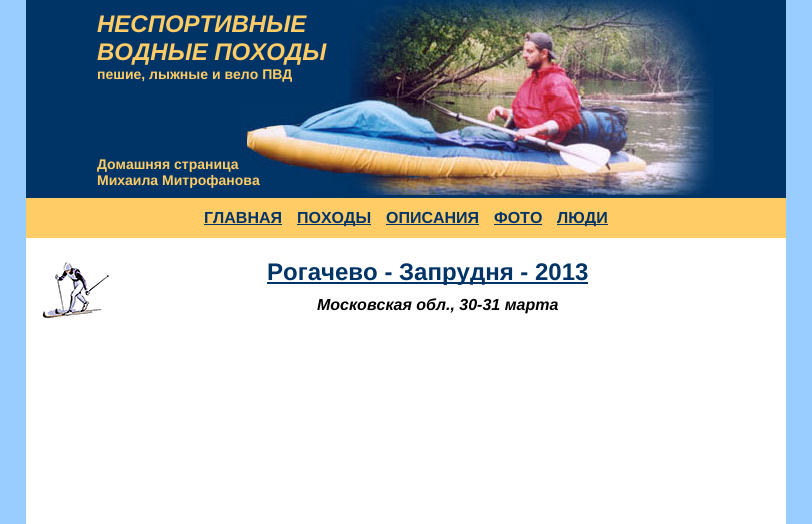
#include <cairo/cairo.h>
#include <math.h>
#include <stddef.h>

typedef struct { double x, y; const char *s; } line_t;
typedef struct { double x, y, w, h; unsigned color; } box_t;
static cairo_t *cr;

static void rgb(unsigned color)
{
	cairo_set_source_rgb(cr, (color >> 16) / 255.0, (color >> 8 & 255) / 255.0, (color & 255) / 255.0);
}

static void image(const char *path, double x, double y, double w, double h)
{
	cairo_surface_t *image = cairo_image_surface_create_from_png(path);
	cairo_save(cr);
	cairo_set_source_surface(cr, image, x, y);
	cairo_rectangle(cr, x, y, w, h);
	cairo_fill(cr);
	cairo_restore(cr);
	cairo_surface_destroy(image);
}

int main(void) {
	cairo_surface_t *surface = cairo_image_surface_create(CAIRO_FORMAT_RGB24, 812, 524);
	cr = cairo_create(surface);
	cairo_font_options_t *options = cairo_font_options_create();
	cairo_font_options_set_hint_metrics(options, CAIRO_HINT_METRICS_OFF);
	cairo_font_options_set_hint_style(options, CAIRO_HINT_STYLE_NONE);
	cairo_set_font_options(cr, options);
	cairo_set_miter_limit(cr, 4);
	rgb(0x99ccff);
	cairo_paint(cr);
	rgb(0x003366);
	cairo_rectangle(cr, 26, 0, 760, 198);
	cairo_fill(cr);
	image("img/1.png", 349, 0, 365, 94);
	image("img/2.png", 241, 94, 473, 104);
	{
		static const box_t items[] = {
			{26, 198, 760, 40, 0xffcc66},
			{204, 224, 78, 1, 0x003366},
			{297, 224, 74, 1, 0x003366},
			{386, 224, 93, 1, 0x003366},
			{494, 224, 48, 1, 0x003366},
			{557, 224, 51, 1, 0x003366},
			{26, 238, 760, 286, 0xffffff},
		};
		for (size_t i = 0; i < sizeof items / sizeof *items; i++) {
			rgb(items[i].color);
			cairo_rectangle(cr, items[i].x, items[i].y, items[i].w, items[i].h);
			cairo_fill(cr);
		}
	}
	image("img/3.png", 42, 262, 67, 57);
	rgb(0x003366);
	cairo_rectangle(cr, 267, 282, 321, 2);
	cairo_fill(cr);
	cairo_select_font_face(cr, "Liberation Sans", CAIRO_FONT_SLANT_ITALIC, CAIRO_FONT_WEIGHT_BOLD);
	cairo_set_font_size(cr, 24);
	rgb(0xffcc66);
	cairo_move_to(cr, 97, 32);
	cairo_show_text(cr, "НЕСПОРТИВНЫЕ");
	cairo_move_to(cr, 97, 60);
	cairo_show_text(cr, "ВОДНЫЕ ПОХОДЫ");
	cairo_select_font_face(cr, "Liberation Sans", CAIRO_FONT_SLANT_NORMAL, CAIRO_FONT_WEIGHT_BOLD);
	cairo_set_font_size(cr, 14);
	{
		static const line_t items[] = {
			{97, 79, "пешие, лыжные и вело ПВД"},
			{97, 169, "Домашняя страница"},
			{97, 185, "Михаила Митрофанова"},
		};
		for (size_t i = 0; i < sizeof items / sizeof *items; i++) {
			cairo_move_to(cr, items[i].x, items[i].y);
			cairo_show_text(cr, items[i].s);
		}
	}
	cairo_set_font_size(cr, 16);
	rgb(0x003366);
	{
		static const line_t items[] = {
			{204, 223, "ГЛАВНАЯ"},
			{297, 223, "ПОХОДЫ"},
			{386, 223, "ОПИСАНИЯ"},
			{494, 223, "ФОТО"},
			{557, 223, "ЛЮДИ"},
		};
		for (size_t i = 0; i < sizeof items / sizeof *items; i++) {
			cairo_move_to(cr, items[i].x, items[i].y);
			cairo_show_text(cr, items[i].s);
		}
	}
	cairo_set_font_size(cr, 24);
	cairo_move_to(cr, 267, 280);
	cairo_show_text(cr, "Рогачево - Запрудня - 2013");
	cairo_select_font_face(cr, "Liberation Sans", CAIRO_FONT_SLANT_ITALIC, CAIRO_FONT_WEIGHT_BOLD);
	cairo_set_font_size(cr, 16);
	rgb(0x000000);
	cairo_move_to(cr, 317, 310);
	cairo_show_text(cr, "Московская обл., 30-31 марта");
	cairo_surface_write_to_png(surface, "page.png");
	cairo_font_options_destroy(options);
	cairo_destroy(cr);
	cairo_surface_destroy(surface);
	return 0;
}
